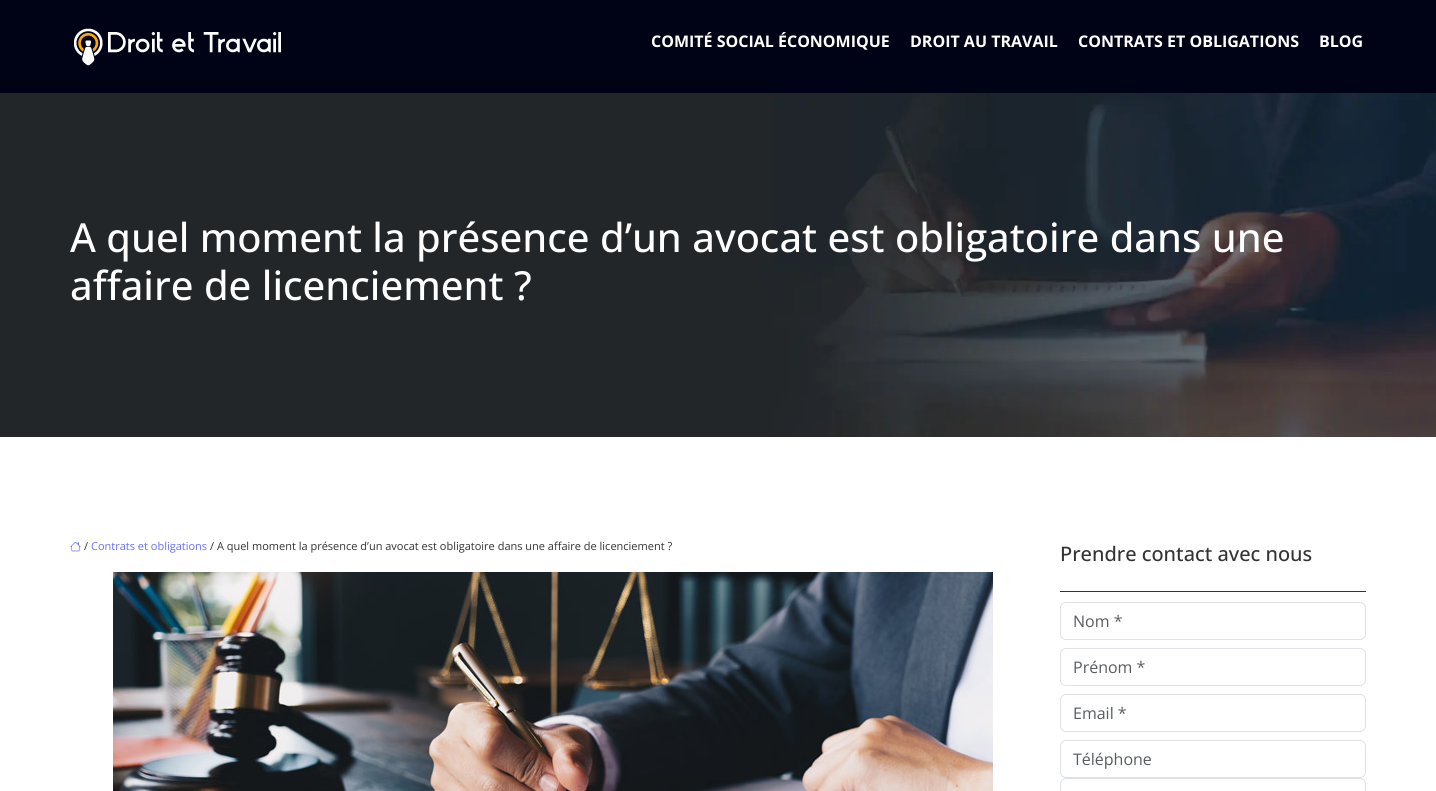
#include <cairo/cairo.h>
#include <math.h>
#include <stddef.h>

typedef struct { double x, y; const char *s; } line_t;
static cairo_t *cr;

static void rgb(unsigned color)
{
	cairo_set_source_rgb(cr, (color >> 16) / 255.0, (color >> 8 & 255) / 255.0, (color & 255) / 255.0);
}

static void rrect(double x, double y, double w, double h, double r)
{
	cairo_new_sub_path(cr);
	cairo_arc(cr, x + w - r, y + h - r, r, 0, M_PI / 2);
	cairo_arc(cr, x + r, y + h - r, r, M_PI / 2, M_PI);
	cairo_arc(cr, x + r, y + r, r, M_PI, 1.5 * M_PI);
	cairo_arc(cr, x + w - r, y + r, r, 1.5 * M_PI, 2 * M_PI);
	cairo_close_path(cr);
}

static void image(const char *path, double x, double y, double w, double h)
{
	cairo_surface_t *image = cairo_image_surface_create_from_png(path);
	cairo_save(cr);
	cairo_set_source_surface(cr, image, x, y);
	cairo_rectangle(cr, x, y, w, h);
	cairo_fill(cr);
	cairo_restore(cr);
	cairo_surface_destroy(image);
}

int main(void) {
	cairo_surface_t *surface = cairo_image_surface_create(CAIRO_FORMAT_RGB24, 1436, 791);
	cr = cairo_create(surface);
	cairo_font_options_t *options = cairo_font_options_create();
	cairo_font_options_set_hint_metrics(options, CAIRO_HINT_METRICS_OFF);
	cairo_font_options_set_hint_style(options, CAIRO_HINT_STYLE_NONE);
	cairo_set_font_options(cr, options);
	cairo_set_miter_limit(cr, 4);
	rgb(0xffffff);
	cairo_paint(cr);
	rgb(0x000316);
	cairo_rectangle(cr, 0, 0, 1436, 93);
	cairo_fill(cr);
	image("img/1.png", 74, 28, 207, 38);
	image("img/2.png", 0, 93, 1436, 344);
	image("img/3.png", 70, 541, 11, 11);
	image("img/4.png", 113, 572, 880, 219);
	rgb(0x333333);
	cairo_rectangle(cr, 1060, 591, 306, 1);
	cairo_fill(cr);
	rrect(1060.5, 602.5, 305, 37, 5.5);
	rgb(0xdee2e6);
	cairo_set_line_width(cr, 1);
	cairo_stroke(cr);
	rrect(1060.5, 648.5, 305, 37, 5.5);
	cairo_stroke(cr);
	rrect(1060.5, 694.5, 305, 37, 5.5);
	cairo_stroke(cr);
	rrect(1060.5, 740.5, 305, 37, 5.5);
	cairo_stroke(cr);
	rrect(1060.5, 778.5, 305, 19, 5.5);
	cairo_stroke(cr);
	cairo_select_font_face(cr, "Open Sans", CAIRO_FONT_SLANT_NORMAL, CAIRO_FONT_WEIGHT_BOLD);
	cairo_set_font_size(cr, 16);
	rgb(0xffffff);
	{
		static const line_t items[] = {
			{651, 47, "COMITÉ SOCIAL ÉCONOMIQUE"},
			{910, 47, "DROIT AU TRAVAIL"},
			{1078, 47, "CONTRATS ET OBLIGATIONS"},
			{1319, 47, "BLOG"},
		};
		for (size_t i = 0; i < sizeof items / sizeof *items; i++) {
			cairo_move_to(cr, items[i].x, items[i].y);
			cairo_show_text(cr, items[i].s);
		}
	}
	cairo_select_font_face(cr, "Open Sans Medium", CAIRO_FONT_SLANT_NORMAL, CAIRO_FONT_WEIGHT_NORMAL);
	cairo_set_font_size(cr, 40);
	cairo_move_to(cr, 70, 252);
	cairo_show_text(cr, "A quel moment la présence d’un avocat est obligatoire dans une");
	cairo_move_to(cr, 70, 300);
	cairo_show_text(cr, "affaire de licenciement ?");
	cairo_select_font_face(cr, "Open Sans", CAIRO_FONT_SLANT_NORMAL, CAIRO_FONT_WEIGHT_NORMAL);
	cairo_set_font_size(cr, 11);
	rgb(0x333333);
	cairo_move_to(cr, 84, 550);
	cairo_show_text(cr, "/");
	rgb(0x6871f4);
	cairo_move_to(cr, 91, 550);
	cairo_show_text(cr, "Contrats et obligations");
	rgb(0x333333);
	cairo_move_to(cr, 210, 550);
	cairo_show_text(cr, "/ A quel moment la présence d’un avocat est obligatoire dans une affaire de licenciement ?");
	cairo_select_font_face(cr, "Open Sans Medium", CAIRO_FONT_SLANT_NORMAL, CAIRO_FONT_WEIGHT_NORMAL);
	cairo_set_font_size(cr, 20);
	cairo_move_to(cr, 1060, 561);
	cairo_show_text(cr, "Prendre contact avec nous");
	cairo_select_font_face(cr, "Open Sans", CAIRO_FONT_SLANT_NORMAL, CAIRO_FONT_WEIGHT_NORMAL);
	cairo_set_font_size(cr, 16);
	rgb(0x595c5f);
	{
		static const line_t items[] = {
			{1073, 627, "Nom *"},
			{1073, 673, "Prénom *"},
			{1073, 719, "Email *"},
			{1073, 765, "Téléphone"},
		};
		for (size_t i = 0; i < sizeof items / sizeof *items; i++) {
			cairo_move_to(cr, items[i].x, items[i].y);
			cairo_show_text(cr, items[i].s);
		}
	}
	cairo_surface_write_to_png(surface, "page.png");
	cairo_font_options_destroy(options);
	cairo_destroy(cr);
	cairo_surface_destroy(surface);
	return 0;
}
